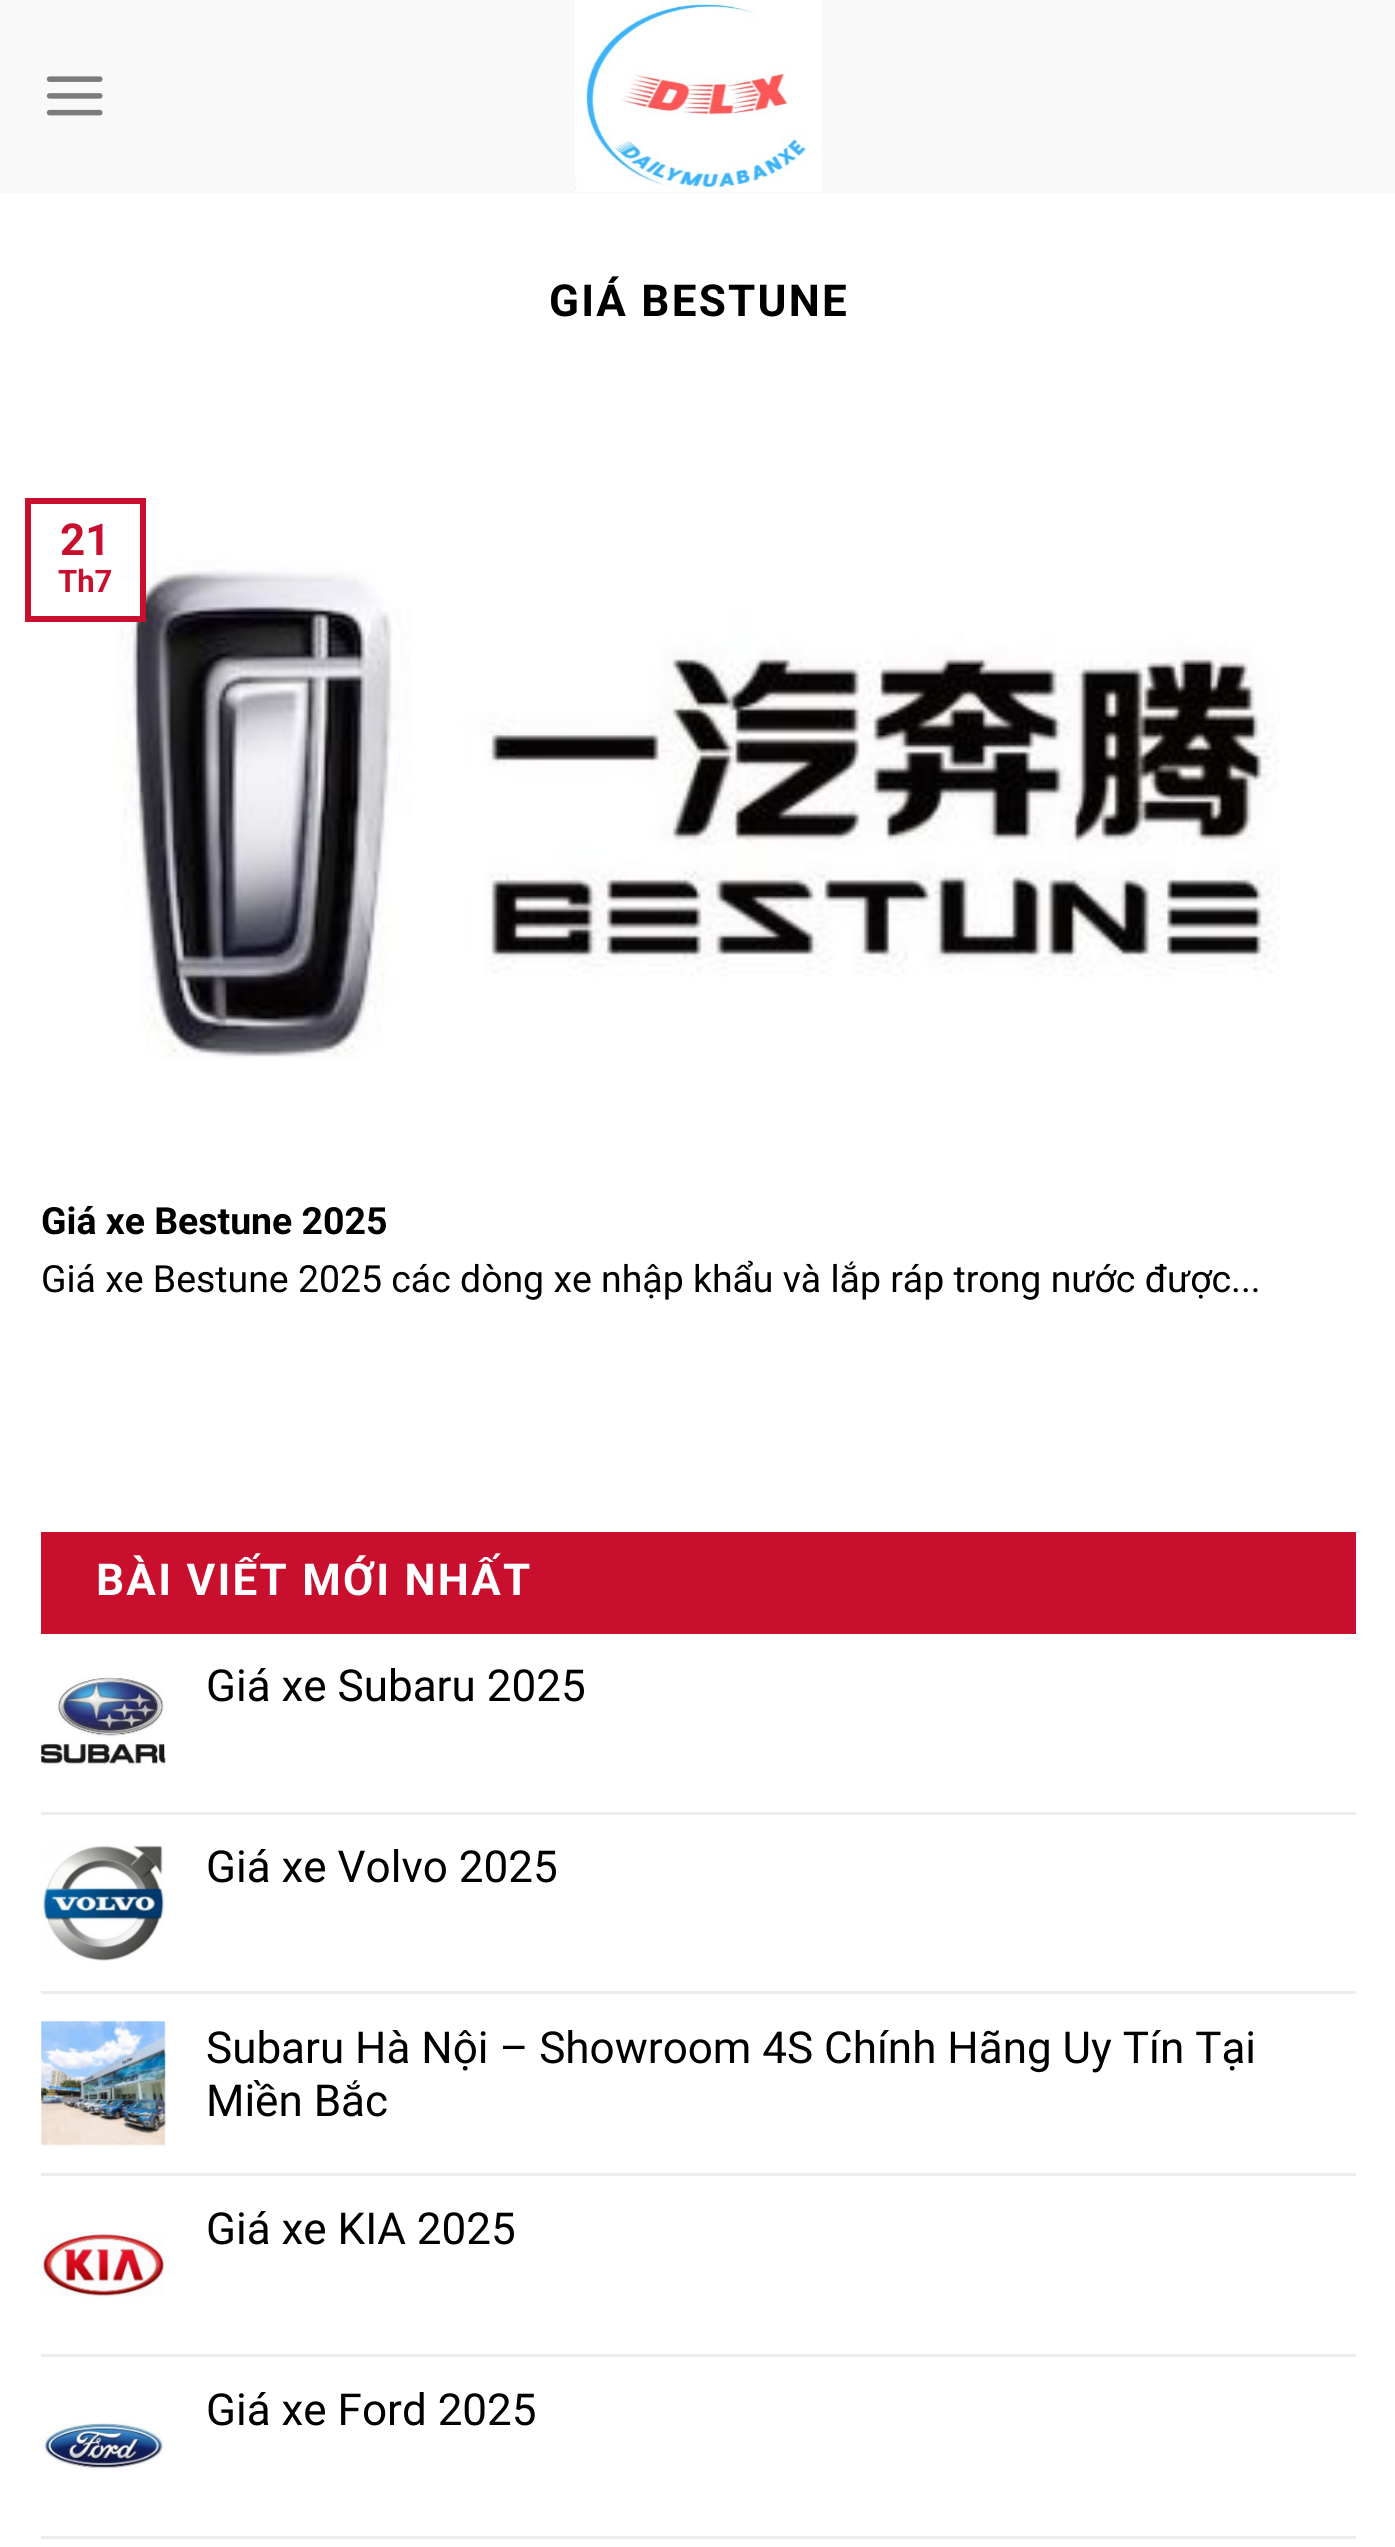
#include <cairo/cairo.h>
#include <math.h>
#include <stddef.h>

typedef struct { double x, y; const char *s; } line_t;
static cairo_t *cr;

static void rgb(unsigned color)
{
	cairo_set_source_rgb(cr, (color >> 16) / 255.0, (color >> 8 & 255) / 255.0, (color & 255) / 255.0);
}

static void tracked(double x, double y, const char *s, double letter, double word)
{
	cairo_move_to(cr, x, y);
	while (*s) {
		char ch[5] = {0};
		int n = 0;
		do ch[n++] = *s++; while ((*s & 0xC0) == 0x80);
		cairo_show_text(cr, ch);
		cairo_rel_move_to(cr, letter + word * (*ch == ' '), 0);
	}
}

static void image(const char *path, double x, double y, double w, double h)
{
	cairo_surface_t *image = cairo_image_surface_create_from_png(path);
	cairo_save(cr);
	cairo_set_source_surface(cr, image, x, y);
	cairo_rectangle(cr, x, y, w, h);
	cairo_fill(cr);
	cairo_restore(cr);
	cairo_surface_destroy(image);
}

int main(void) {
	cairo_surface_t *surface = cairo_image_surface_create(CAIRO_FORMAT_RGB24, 1395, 2547);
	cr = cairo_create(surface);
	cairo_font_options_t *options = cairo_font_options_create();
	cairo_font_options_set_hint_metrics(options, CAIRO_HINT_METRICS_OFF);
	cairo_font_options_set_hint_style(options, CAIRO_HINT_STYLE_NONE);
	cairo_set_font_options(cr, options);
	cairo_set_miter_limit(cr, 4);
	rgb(0xffffff);
	cairo_paint(cr);
	rgb(0xf9f9f9);
	cairo_rectangle(cr, 0, 0, 1395, 193);
	cairo_fill(cr);
	image("img/1.png", 46, 76, 57, 40);
	image("img/2.png", 575, 0, 247, 192);
	image("img/3.png", 114, 559, 1166, 500);
	rgb(0xffffff);
	cairo_rectangle(cr, 114, 580, 26, 36);
	cairo_fill(cr);
	cairo_rectangle(cr, 28, 501, 115, 118);
	rgb(0xc8102e);
	cairo_set_line_width(cr, 6);
	cairo_stroke(cr);
	cairo_rectangle(cr, 41, 1532, 1315, 102);
	cairo_fill(cr);
	image("img/4.png", 41, 1677, 125, 89);
	rgb(0xececec);
	cairo_rectangle(cr, 41, 1812, 1315, 3);
	cairo_fill(cr);
	image("img/5.png", 41, 1845, 124, 116);
	cairo_rectangle(cr, 41, 1991, 1315, 3);
	cairo_fill(cr);
	image("img/6.png", 41, 2021, 125, 125);
	cairo_rectangle(cr, 41, 2173, 1315, 3);
	cairo_fill(cr);
	image("img/7.png", 41, 2231, 124, 66);
	cairo_rectangle(cr, 41, 2354, 1315, 3);
	cairo_fill(cr);
	image("img/8.png", 41, 2422, 123, 48);
	cairo_rectangle(cr, 41, 2536, 1315, 3);
	cairo_fill(cr);
	cairo_select_font_face(cr, "Roboto", CAIRO_FONT_SLANT_NORMAL, CAIRO_FONT_WEIGHT_BOLD);
	cairo_set_font_size(cr, 44);
	rgb(0x000000);
	tracked(549, 316, "GIÁ BESTUNE", 2.25, 0);
	rgb(0xc8102e);
	cairo_move_to(cr, 60, 555);
	cairo_show_text(cr, "21");
	cairo_set_font_size(cr, 31);
	cairo_move_to(cr, 58, 592);
	cairo_show_text(cr, "Th7");
	cairo_set_font_size(cr, 37.4);
	rgb(0x000000);
	cairo_move_to(cr, 41, 1234);
	cairo_show_text(cr, "Giá xe Bestune 2025");
	cairo_select_font_face(cr, "Roboto", CAIRO_FONT_SLANT_NORMAL, CAIRO_FONT_WEIGHT_NORMAL);
	cairo_move_to(cr, 41, 1292);
	cairo_show_text(cr, "Giá xe Bestune 2025 các dòng xe nhập khẩu và lắp ráp trong nước được...");
	cairo_select_font_face(cr, "Roboto", CAIRO_FONT_SLANT_NORMAL, CAIRO_FONT_WEIGHT_BOLD);
	cairo_set_font_size(cr, 44);
	rgb(0xffffff);
	tracked(96, 1595, "BÀI VIẾT MỚI NHẤT", 2.25, 0);
	cairo_select_font_face(cr, "Roboto", CAIRO_FONT_SLANT_NORMAL, CAIRO_FONT_WEIGHT_NORMAL);
	rgb(0x000000);
	{
		static const line_t items[] = {
			{206, 1701, "Giá xe Subaru 2025"},
			{206, 1882, "Giá xe Volvo 2025"},
			{206, 2063, "Subaru Hà Nội – Showroom 4S Chính Hãng Uy Tín Tại"},
			{206, 2116, "Miền Bắc"},
			{206, 2244, "Giá xe KIA 2025"},
			{206, 2425, "Giá xe Ford 2025"},
		};
		for (size_t i = 0; i < sizeof items / sizeof *items; i++) {
			cairo_move_to(cr, items[i].x, items[i].y);
			cairo_show_text(cr, items[i].s);
		}
	}
	cairo_surface_write_to_png(surface, "page.png");
	cairo_font_options_destroy(options);
	cairo_destroy(cr);
	cairo_surface_destroy(surface);
	return 0;
}
